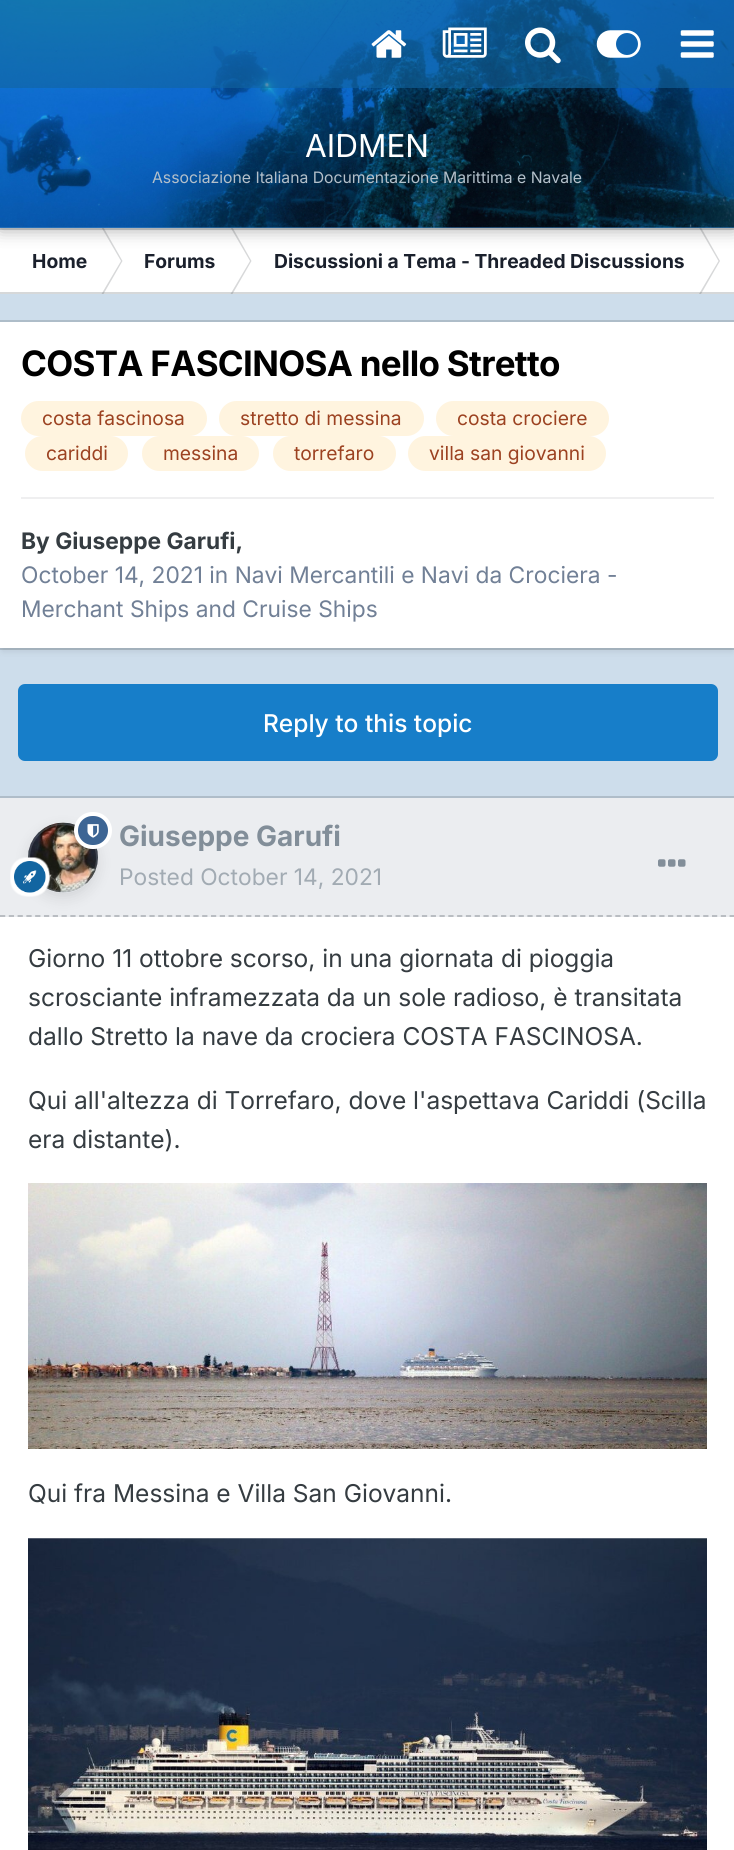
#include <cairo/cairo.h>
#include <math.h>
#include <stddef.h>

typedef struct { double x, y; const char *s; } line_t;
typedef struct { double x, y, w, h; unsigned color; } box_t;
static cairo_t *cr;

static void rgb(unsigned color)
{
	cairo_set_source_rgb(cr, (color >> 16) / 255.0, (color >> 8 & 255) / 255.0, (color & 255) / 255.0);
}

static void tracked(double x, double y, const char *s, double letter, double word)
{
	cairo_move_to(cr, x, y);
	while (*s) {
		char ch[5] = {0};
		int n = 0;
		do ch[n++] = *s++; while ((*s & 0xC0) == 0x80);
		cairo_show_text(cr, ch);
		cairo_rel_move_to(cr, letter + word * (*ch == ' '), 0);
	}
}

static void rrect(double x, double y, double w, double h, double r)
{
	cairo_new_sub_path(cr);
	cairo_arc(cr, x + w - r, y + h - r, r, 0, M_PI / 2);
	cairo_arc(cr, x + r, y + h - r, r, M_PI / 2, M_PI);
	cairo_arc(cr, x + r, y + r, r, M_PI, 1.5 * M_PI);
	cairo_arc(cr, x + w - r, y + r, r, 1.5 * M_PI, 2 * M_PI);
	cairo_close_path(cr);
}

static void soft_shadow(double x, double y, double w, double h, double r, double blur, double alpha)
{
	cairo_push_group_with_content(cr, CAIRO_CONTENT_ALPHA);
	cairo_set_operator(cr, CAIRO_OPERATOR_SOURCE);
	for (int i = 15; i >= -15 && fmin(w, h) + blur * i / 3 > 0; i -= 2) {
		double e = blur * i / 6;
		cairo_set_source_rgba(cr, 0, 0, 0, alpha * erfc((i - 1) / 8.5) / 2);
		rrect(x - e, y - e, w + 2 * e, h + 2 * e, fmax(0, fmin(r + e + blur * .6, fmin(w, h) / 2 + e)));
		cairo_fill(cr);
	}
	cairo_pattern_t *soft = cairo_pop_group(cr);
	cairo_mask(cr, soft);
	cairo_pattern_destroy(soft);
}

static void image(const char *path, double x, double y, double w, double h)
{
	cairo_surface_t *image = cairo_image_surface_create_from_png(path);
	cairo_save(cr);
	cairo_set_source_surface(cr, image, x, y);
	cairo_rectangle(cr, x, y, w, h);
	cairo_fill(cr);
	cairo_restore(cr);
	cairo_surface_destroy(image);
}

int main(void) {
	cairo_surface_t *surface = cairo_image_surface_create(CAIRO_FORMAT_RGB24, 734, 1850);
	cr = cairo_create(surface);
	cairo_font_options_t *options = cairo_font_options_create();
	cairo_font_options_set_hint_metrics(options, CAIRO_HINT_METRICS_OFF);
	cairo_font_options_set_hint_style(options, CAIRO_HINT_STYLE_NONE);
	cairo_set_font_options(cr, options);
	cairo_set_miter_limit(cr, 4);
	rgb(0xcdddeb);
	cairo_paint(cr);
	rgb(0xffffff);
	cairo_rectangle(cr, 0, 228, 734, 66);
	cairo_fill(cr);
	rgb(0xd7d8d9);
	cairo_new_path(cr);
	cairo_move_to(cr, 101.5, 227.5);
	cairo_line_to(cr, 103.5, 227.5);
	cairo_line_to(cr, 122.5, 261);
	cairo_line_to(cr, 121, 261);
	cairo_close_path(cr);
	cairo_fill(cr);
	cairo_new_path(cr);
	cairo_move_to(cr, 230.5, 227.5);
	cairo_line_to(cr, 232.5, 227.5);
	cairo_line_to(cr, 251.5, 261);
	cairo_line_to(cr, 250, 261);
	cairo_close_path(cr);
	cairo_fill(cr);
	cairo_new_path(cr);
	cairo_move_to(cr, 699, 227.5);
	cairo_line_to(cr, 701, 227.5);
	cairo_line_to(cr, 720, 261);
	cairo_line_to(cr, 718.5, 261);
	cairo_close_path(cr);
	cairo_fill(cr);
	cairo_set_source_rgba(cr, 0.208, 0.235, 0.255, 0.2);
	cairo_rectangle(cr, 0, 228, 734, 2);
	cairo_fill(cr);
	rgb(0x000000);
	soft_shadow(0, 2, 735, 227, 0, 9, 0.35);
	rgb(0x3d85c6);
	cairo_rectangle(cr, 0, 227, 734, 1);
	cairo_fill(cr);
	image("img/1.png", 0, 0, 734, 228);
	cairo_set_source_rgba(cr, 0.071, 0.396, 0.631, 0.6);
	cairo_rectangle(cr, 0, 0, 734, 88);
	cairo_fill(cr);
	image("img/2.png", 371, 30, 36, 28);
	image("img/3.png", 442, 27, 45, 31);
	image("img/4.png", 525, 27, 36, 37);
	image("img/5.png", 596, 30, 45, 28);
	image("img/6.png", 680, 30, 34, 28);
	rgb(0xd7d8d9);
	cairo_new_path(cr);
	cairo_move_to(cr, 101.5, 294);
	cairo_line_to(cr, 103.5, 294);
	cairo_line_to(cr, 122.5, 261);
	cairo_line_to(cr, 121, 261);
	cairo_close_path(cr);
	cairo_fill(cr);
	cairo_new_path(cr);
	cairo_move_to(cr, 230.5, 294);
	cairo_line_to(cr, 232.5, 294);
	cairo_line_to(cr, 251.5, 261);
	cairo_line_to(cr, 250, 261);
	cairo_close_path(cr);
	cairo_fill(cr);
	cairo_new_path(cr);
	cairo_move_to(cr, 699, 294);
	cairo_line_to(cr, 701, 294);
	cairo_line_to(cr, 720, 261);
	cairo_line_to(cr, 718.5, 261);
	cairo_close_path(cr);
	cairo_fill(cr);
	cairo_set_source_rgba(cr, 0.208, 0.235, 0.255, 0.2);
	cairo_rectangle(cr, 0, 292, 734, 2);
	cairo_fill(cr);
	rgb(0x000000);
	soft_shadow(2, 326, 731, 325, 0, 3.5, 0.1);
	rgb(0xffffff);
	cairo_rectangle(cr, 0, 322, 734, 326);
	cairo_fill(cr);
	rgb(0xaebdc9);
	cairo_rectangle(cr, 0, 320, 734, 2);
	cairo_fill(cr);
	cairo_set_source_rgba(cr, 0.208, 0.235, 0.255, 0.2);
	cairo_rectangle(cr, 0, 648, 734, 2);
	cairo_fill(cr);
	rgb(0xfff4df);
	rrect(21, 401, 186, 35, 17.5);
	cairo_fill(cr);
	rrect(219, 401, 205, 35, 17.5);
	cairo_fill(cr);
	rrect(436, 401, 173, 35, 17.5);
	cairo_fill(cr);
	rrect(25, 436, 103, 35, 17.5);
	cairo_fill(cr);
	rrect(142, 436, 117, 35, 17.5);
	cairo_fill(cr);
	rrect(273, 436, 123, 35, 17.5);
	cairo_fill(cr);
	rrect(408, 436, 198, 35, 17.5);
	cairo_fill(cr);
	rgb(0xefeff0);
	cairo_rectangle(cr, 21, 497, 693, 2);
	cairo_fill(cr);
	rgb(0x177ec9);
	rrect(18, 684, 700, 77, 7);
	cairo_fill(cr);
	{
		static const box_t items[] = {
			{0, 917, 734, 933, 0xffffff},
			{0, 796, 734, 2, 0xafbdc9},
			{0, 798, 734, 119, 0xebedf0},
		};
		for (size_t i = 0; i < sizeof items / sizeof *items; i++) {
			rgb(items[i].color);
			cairo_rectangle(cr, items[i].x, items[i].y, items[i].w, items[i].h);
			cairo_fill(cr);
		}
	}
	cairo_new_path(cr);
	cairo_move_to(cr, 0, 916);
	cairo_line_to(cr, 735, 916);
	rgb(0xb4b8bc);
	cairo_set_line_width(cr, 1.8);
	cairo_set_dash(cr, (double[]){5.25, 3.54}, 2, 0);
	cairo_stroke(cr);
	rgb(0xffffff);
	cairo_arc(cr, 63, 858, 35, 0, 2 * M_PI);
	cairo_fill(cr);
	image("img/7.png", 28, 822, 70, 71);
	cairo_save(cr);
	cairo_set_fill_rule(cr, CAIRO_FILL_RULE_EVEN_ODD);
	cairo_new_path(cr);
	cairo_move_to(cr, 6, 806);
	cairo_line_to(cr, 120, 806);
	cairo_line_to(cr, 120, 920);
	cairo_line_to(cr, 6, 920);
	cairo_close_path(cr);
	cairo_move_to(cr, 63, 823);
	cairo_curve_to(cr, 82.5, 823, 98, 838.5, 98, 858);
	cairo_curve_to(cr, 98, 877.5, 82.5, 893, 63, 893);
	cairo_curve_to(cr, 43.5, 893, 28, 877.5, 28, 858);
	cairo_curve_to(cr, 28, 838.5, 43.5, 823, 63, 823);
	cairo_close_path(cr);
	cairo_clip(cr);
	rgb(0x000000);
	soft_shadow(28, 828, 70, 70, 35, 7, 0.1);
	cairo_restore(cr);
	cairo_arc(cr, 63, 858, 34, 0, 2 * M_PI);
	cairo_set_source_rgba(cr, 0.51, 0.557, 0.6, 0.3);
	cairo_set_line_width(cr, 2);
	cairo_set_dash(cr, NULL, 0, 0);
	cairo_stroke(cr);
	rgb(0x3d6594);
	rrect(76, 814, 34, 33, 16.5);
	cairo_fill_preserve(cr);
	rgb(0xffffff);
	cairo_set_line_width(cr, 4);
	cairo_stroke(cr);
	image("img/8.png", 87, 824, 12, 14);
	image("img/9.png", 10, 857, 40, 40);
	image("img/10.png", 658, 859, 28, 8);
	image("img/11.png", 28, 1183, 679, 266);
	image("img/12.png", 28, 1538, 679, 312);
	cairo_select_font_face(cr, "Inter", CAIRO_FONT_SLANT_NORMAL, CAIRO_FONT_WEIGHT_NORMAL);
	cairo_set_font_size(cr, 31.5);
	cairo_move_to(cr, 305, 157);
	cairo_show_text(cr, "AIDMEN");
	cairo_set_font_size(cr, 15.75);
	rgb(0xb4c0ca);
	cairo_move_to(cr, 152, 183);
	cairo_show_text(cr, "Associazione Italiana Documentazione Marittima e Navale");
	cairo_select_font_face(cr, "Inter", CAIRO_FONT_SLANT_NORMAL, CAIRO_FONT_WEIGHT_BOLD);
	cairo_set_font_size(cr, 19.25);
	rgb(0x1a202c);
	{
		static const line_t items[] = {
			{32, 268, "Home"},
			{144, 268, "Forums"},
			{274, 268, "Discussioni a Tema - Threaded Discussions"},
		};
		for (size_t i = 0; i < sizeof items / sizeof *items; i++) {
			cairo_move_to(cr, items[i].x, items[i].y);
			cairo_show_text(cr, items[i].s);
		}
	}
	cairo_set_font_size(cr, 35);
	rgb(0x000000);
	tracked(21, 376, "COSTA FASCINOSA nello Stretto", -0.7, 0);
	cairo_select_font_face(cr, "Inter", CAIRO_FONT_SLANT_NORMAL, CAIRO_FONT_WEIGHT_NORMAL);
	cairo_set_font_size(cr, 19.25);
	rgb(0x9c4221);
	{
		static const line_t items[] = {
			{42, 425, "costa fascinosa"},
			{240, 425, "stretto di messina"},
			{457, 425, "costa crociere"},
			{46, 460, "cariddi"},
			{163, 460, "messina"},
			{294, 460, "torrefaro"},
			{429, 460, "villa san giovanni"},
		};
		for (size_t i = 0; i < sizeof items / sizeof *items; i++) {
			cairo_move_to(cr, items[i].x, items[i].y);
			cairo_show_text(cr, items[i].s);
		}
	}
	cairo_select_font_face(cr, "Inter", CAIRO_FONT_SLANT_NORMAL, CAIRO_FONT_WEIGHT_BOLD);
	cairo_set_font_size(cr, 22.75);
	rgb(0x353c41);
	cairo_move_to(cr, 21, 549);
	cairo_show_text(cr, "By Giuseppe Garufi,");
	cairo_select_font_face(cr, "Inter", CAIRO_FONT_SLANT_NORMAL, CAIRO_FONT_WEIGHT_NORMAL);
	rgb(0x718096);
	cairo_move_to(cr, 21, 583);
	cairo_show_text(cr, "October 14, 2021 in Navi Mercantili e Navi da Crociera -");
	cairo_move_to(cr, 21, 617);
	cairo_show_text(cr, "Merchant Ships and Cruise Ships");
	cairo_select_font_face(cr, "Inter Medium", CAIRO_FONT_SLANT_NORMAL, CAIRO_FONT_WEIGHT_NORMAL);
	cairo_set_font_size(cr, 24.5);
	rgb(0xffffff);
	cairo_move_to(cr, 263, 732);
	cairo_show_text(cr, "Reply to this topic");
	cairo_save(cr);
	cairo_rectangle(cr, 119, 819, 222, 32);
	cairo_clip(cr);
	cairo_select_font_face(cr, "Inter", CAIRO_FONT_SLANT_NORMAL, CAIRO_FONT_WEIGHT_BOLD);
	cairo_set_font_size(cr, 28);
	rgb(0x828e99);
	cairo_move_to(cr, 119, 846);
	cairo_show_text(cr, "Giuseppe Garufi");
	cairo_restore(cr);
	cairo_select_font_face(cr, "Inter", CAIRO_FONT_SLANT_NORMAL, CAIRO_FONT_WEIGHT_NORMAL);
	cairo_set_font_size(cr, 22.75);
	rgb(0xa2abb3);
	cairo_move_to(cr, 119, 885);
	cairo_show_text(cr, "Posted October 14, 2021");
	cairo_set_font_size(cr, 24.5);
	rgb(0x353c41);
	{
		static const line_t items[] = {
			{28, 967, "Giorno 11 ottobre scorso, in una giornata di pioggia"},
			{28, 1006, "scrosciante inframezzata da un sole radioso, è transitata"},
			{28, 1045, "dallo Stretto la nave da crociera COSTA FASCINOSA."},
			{28, 1109, "Qui all'altezza di Torrefaro, dove l'aspettava Cariddi (Scilla"},
			{28, 1148, "era distante)."},
			{28, 1502, "Qui fra Messina e Villa San Giovanni."},
		};
		for (size_t i = 0; i < sizeof items / sizeof *items; i++) {
			cairo_move_to(cr, items[i].x, items[i].y);
			cairo_show_text(cr, items[i].s);
		}
	}
	cairo_surface_write_to_png(surface, "page.png");
	cairo_font_options_destroy(options);
	cairo_destroy(cr);
	cairo_surface_destroy(surface);
	return 0;
}
